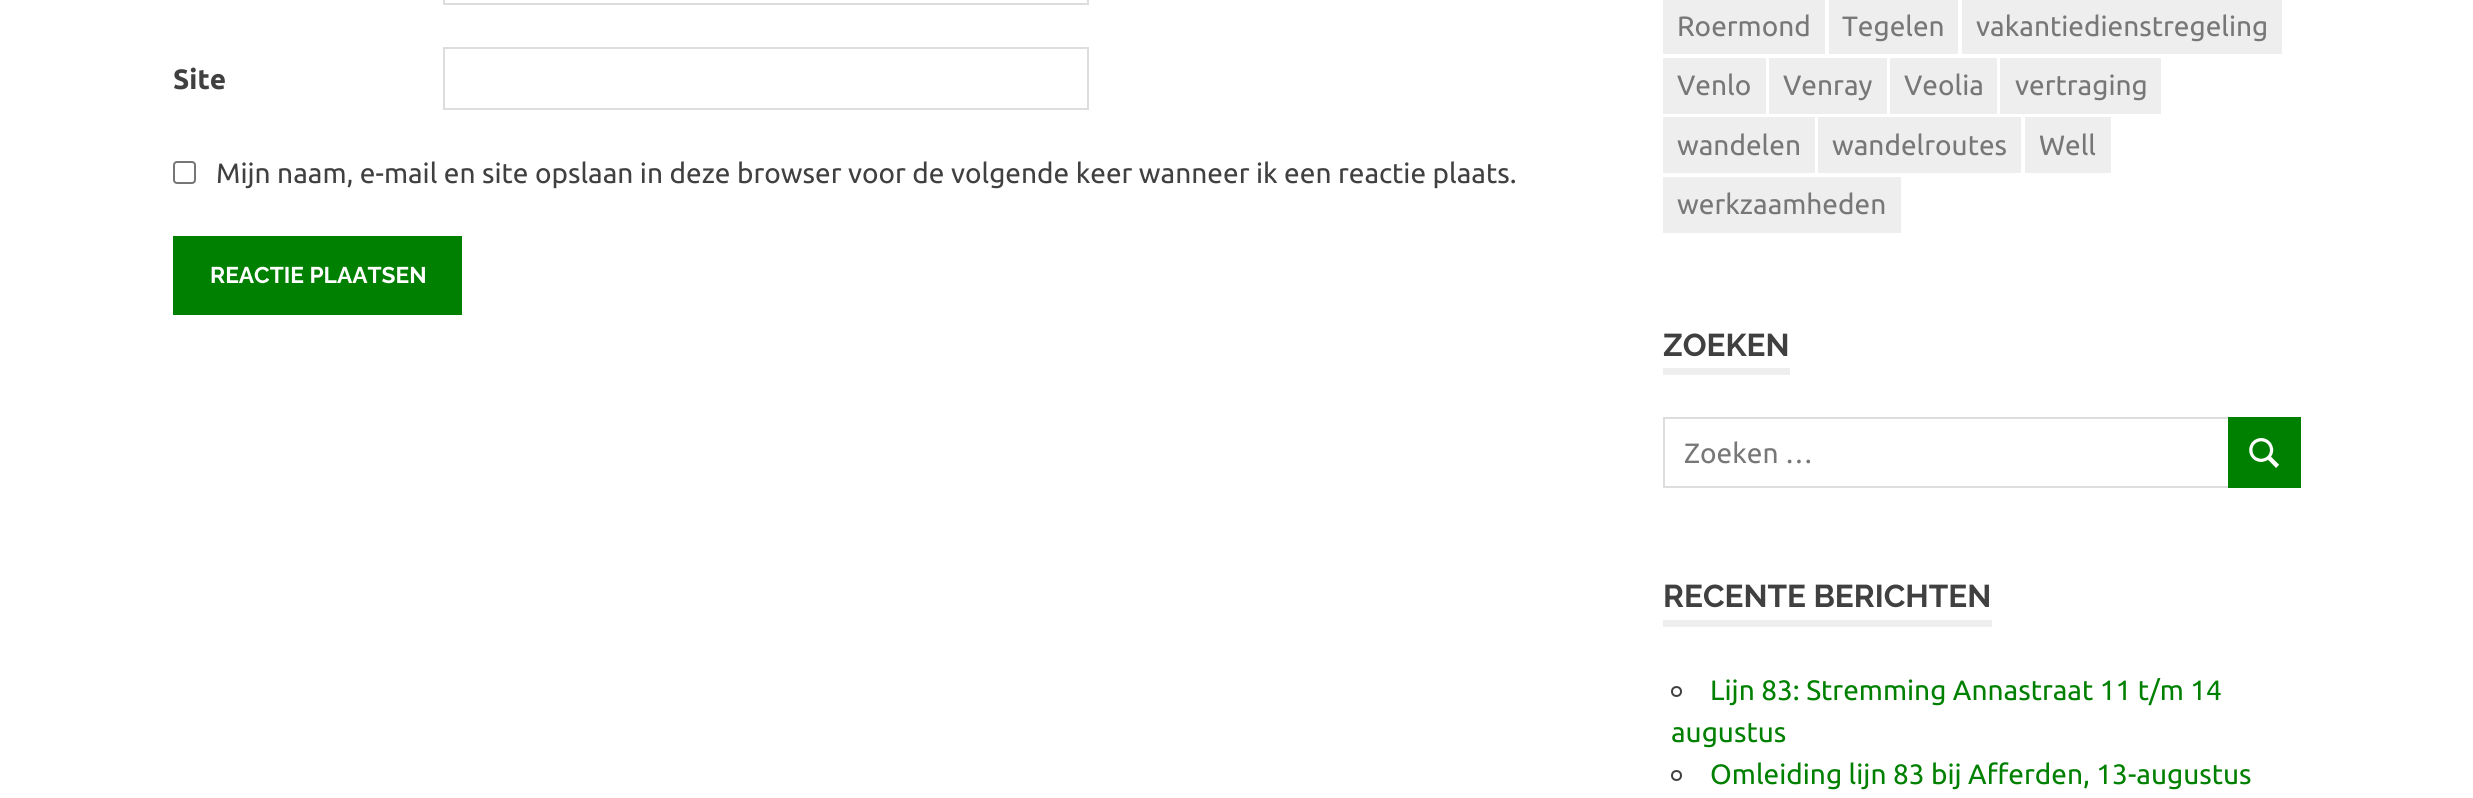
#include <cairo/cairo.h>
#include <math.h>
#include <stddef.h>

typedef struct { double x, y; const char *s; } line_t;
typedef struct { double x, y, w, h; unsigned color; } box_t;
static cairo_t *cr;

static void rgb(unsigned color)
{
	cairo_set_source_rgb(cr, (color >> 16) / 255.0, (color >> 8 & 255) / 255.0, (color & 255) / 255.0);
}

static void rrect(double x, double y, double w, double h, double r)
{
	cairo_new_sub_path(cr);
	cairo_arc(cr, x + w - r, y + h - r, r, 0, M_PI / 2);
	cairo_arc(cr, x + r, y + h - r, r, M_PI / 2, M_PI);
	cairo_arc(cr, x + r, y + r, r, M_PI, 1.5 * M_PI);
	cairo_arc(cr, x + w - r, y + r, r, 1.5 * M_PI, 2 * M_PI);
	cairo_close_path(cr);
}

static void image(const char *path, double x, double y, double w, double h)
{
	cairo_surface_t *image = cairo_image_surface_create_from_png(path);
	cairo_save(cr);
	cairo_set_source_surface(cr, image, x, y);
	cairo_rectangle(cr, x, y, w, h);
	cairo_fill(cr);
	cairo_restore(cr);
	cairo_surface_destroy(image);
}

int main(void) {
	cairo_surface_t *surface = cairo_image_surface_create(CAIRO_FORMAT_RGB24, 2473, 798);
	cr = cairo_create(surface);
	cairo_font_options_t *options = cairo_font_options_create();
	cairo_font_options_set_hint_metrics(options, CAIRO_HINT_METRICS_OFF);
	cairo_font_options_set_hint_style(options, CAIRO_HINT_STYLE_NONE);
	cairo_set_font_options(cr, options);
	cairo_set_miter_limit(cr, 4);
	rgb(0xffffff);
	cairo_paint(cr);
	cairo_rectangle(cr, 444, -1, 644, 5);
	rgb(0xdddddd);
	cairo_stroke(cr);
	cairo_rectangle(cr, 444, 48, 644, 61);
	cairo_stroke(cr);
	rrect(174, 162, 21, 21, 3);
	rgb(0x767676);
	cairo_stroke(cr);
	{
		static const box_t items[] = {
			{173, 236, 289, 79, 0x008000},
			{1663, 0, 162, 54, 0xeeeeee},
			{1829, 0, 129, 54, 0xeeeeee},
			{1962, 0, 320, 54, 0xeeeeee},
			{1663, 58, 103, 56, 0xeeeeee},
			{1769, 58, 118, 56, 0xeeeeee},
			{1890, 58, 107, 56, 0xeeeeee},
			{2000, 58, 161, 56, 0xeeeeee},
			{1663, 117, 152, 56, 0xeeeeee},
			{1818, 117, 203, 56, 0xeeeeee},
			{2025, 117, 86, 56, 0xeeeeee},
			{1663, 177, 238, 56, 0xeeeeee},
			{1663, 368, 127, 7, 0xeeeeee},
		};
		for (size_t i = 0; i < sizeof items / sizeof *items; i++) {
			rgb(items[i].color);
			cairo_rectangle(cr, items[i].x, items[i].y, items[i].w, items[i].h);
			cairo_fill(cr);
		}
	}
	cairo_rectangle(cr, 1664, 418, 565, 69);
	rgb(0xdddddd);
	cairo_stroke(cr);
	rgb(0x008000);
	cairo_rectangle(cr, 2228, 417, 73, 71);
	cairo_fill(cr);
	image("img/1.png", 2249, 438, 30, 30);
	rgb(0xeeeeee);
	cairo_rectangle(cr, 1663, 620, 329, 7);
	cairo_fill(cr);
	cairo_arc(cr, 1676.5, 691.5, 4.5, 0, 2 * M_PI);
	rgb(0x404040);
	cairo_stroke(cr);
	cairo_arc(cr, 1676.5, 775.5, 4.5, 0, 2 * M_PI);
	cairo_stroke(cr);
	cairo_select_font_face(cr, "Ubuntu", CAIRO_FONT_SLANT_NORMAL, CAIRO_FONT_WEIGHT_BOLD);
	cairo_set_font_size(cr, 28);
	cairo_move_to(cr, 173, 89);
	cairo_show_text(cr, "Site");
	cairo_select_font_face(cr, "Ubuntu", CAIRO_FONT_SLANT_NORMAL, CAIRO_FONT_WEIGHT_NORMAL);
	cairo_move_to(cr, 216, 183);
	cairo_show_text(cr, "Mijn naam, e-mail en site opslaan in deze browser voor de volgende keer wanneer ik een reactie plaats.");
	cairo_select_font_face(cr, "Raleway", CAIRO_FONT_SLANT_NORMAL, CAIRO_FONT_WEIGHT_BOLD);
	cairo_set_font_size(cr, 22.75);
	rgb(0xffffff);
	cairo_move_to(cr, 210, 283);
	cairo_show_text(cr, "REACTIE PLAATSEN");
	cairo_select_font_face(cr, "Ubuntu", CAIRO_FONT_SLANT_NORMAL, CAIRO_FONT_WEIGHT_NORMAL);
	cairo_set_font_size(cr, 28);
	rgb(0x777777);
	{
		static const line_t items[] = {
			{1677, 36, "Roermond"},
			{1842, 36, "Tegelen"},
			{1976, 36, "vakantiedienstregeling"},
			{1677, 95, "Venlo"},
			{1783, 95, "Venray"},
			{1904, 95, "Veolia"},
			{2015, 95, "vertraging"},
			{1677, 155, "wandelen"},
			{1832, 155, "wandelroutes"},
			{2039, 155, "Well"},
			{1677, 214, "werkzaamheden"},
		};
		for (size_t i = 0; i < sizeof items / sizeof *items; i++) {
			cairo_move_to(cr, items[i].x, items[i].y);
			cairo_show_text(cr, items[i].s);
		}
	}
	cairo_select_font_face(cr, "Raleway", CAIRO_FONT_SLANT_NORMAL, CAIRO_FONT_WEIGHT_BOLD);
	cairo_set_font_size(cr, 31.5);
	rgb(0x404040);
	cairo_move_to(cr, 1663, 356);
	cairo_show_text(cr, "ZOEKEN");
	cairo_select_font_face(cr, "Ubuntu", CAIRO_FONT_SLANT_NORMAL, CAIRO_FONT_WEIGHT_NORMAL);
	cairo_set_font_size(cr, 28);
	rgb(0x777777);
	cairo_move_to(cr, 1684, 463);
	cairo_show_text(cr, "Zoeken …");
	cairo_select_font_face(cr, "Raleway", CAIRO_FONT_SLANT_NORMAL, CAIRO_FONT_WEIGHT_BOLD);
	cairo_set_font_size(cr, 31.5);
	rgb(0x404040);
	cairo_move_to(cr, 1663, 607);
	cairo_show_text(cr, "RECENTE BERICHTEN");
	cairo_select_font_face(cr, "Ubuntu", CAIRO_FONT_SLANT_NORMAL, CAIRO_FONT_WEIGHT_NORMAL);
	cairo_set_font_size(cr, 28);
	rgb(0x008000);
	{
		static const line_t items[] = {
			{1710, 700, "Lijn 83: Stremming Annastraat 11 t/m 14"},
			{1671, 742, "augustus"},
			{1710, 784, "Omleiding lijn 83 bij Afferden, 13-augustus"},
		};
		for (size_t i = 0; i < sizeof items / sizeof *items; i++) {
			cairo_move_to(cr, items[i].x, items[i].y);
			cairo_show_text(cr, items[i].s);
		}
	}
	cairo_surface_write_to_png(surface, "page.png");
	cairo_font_options_destroy(options);
	cairo_destroy(cr);
	cairo_surface_destroy(surface);
	return 0;
}
